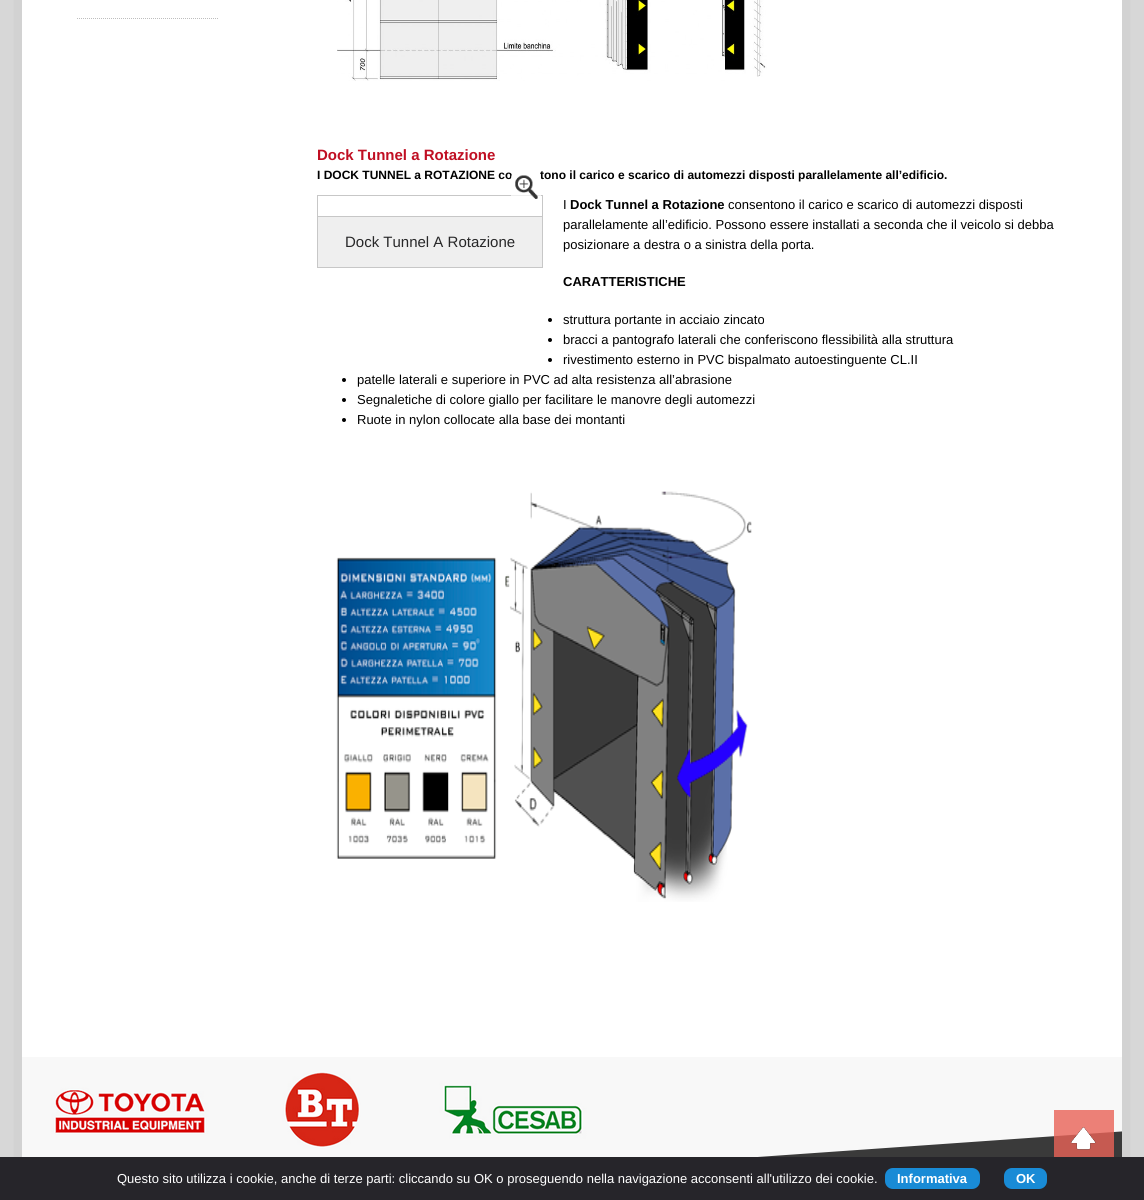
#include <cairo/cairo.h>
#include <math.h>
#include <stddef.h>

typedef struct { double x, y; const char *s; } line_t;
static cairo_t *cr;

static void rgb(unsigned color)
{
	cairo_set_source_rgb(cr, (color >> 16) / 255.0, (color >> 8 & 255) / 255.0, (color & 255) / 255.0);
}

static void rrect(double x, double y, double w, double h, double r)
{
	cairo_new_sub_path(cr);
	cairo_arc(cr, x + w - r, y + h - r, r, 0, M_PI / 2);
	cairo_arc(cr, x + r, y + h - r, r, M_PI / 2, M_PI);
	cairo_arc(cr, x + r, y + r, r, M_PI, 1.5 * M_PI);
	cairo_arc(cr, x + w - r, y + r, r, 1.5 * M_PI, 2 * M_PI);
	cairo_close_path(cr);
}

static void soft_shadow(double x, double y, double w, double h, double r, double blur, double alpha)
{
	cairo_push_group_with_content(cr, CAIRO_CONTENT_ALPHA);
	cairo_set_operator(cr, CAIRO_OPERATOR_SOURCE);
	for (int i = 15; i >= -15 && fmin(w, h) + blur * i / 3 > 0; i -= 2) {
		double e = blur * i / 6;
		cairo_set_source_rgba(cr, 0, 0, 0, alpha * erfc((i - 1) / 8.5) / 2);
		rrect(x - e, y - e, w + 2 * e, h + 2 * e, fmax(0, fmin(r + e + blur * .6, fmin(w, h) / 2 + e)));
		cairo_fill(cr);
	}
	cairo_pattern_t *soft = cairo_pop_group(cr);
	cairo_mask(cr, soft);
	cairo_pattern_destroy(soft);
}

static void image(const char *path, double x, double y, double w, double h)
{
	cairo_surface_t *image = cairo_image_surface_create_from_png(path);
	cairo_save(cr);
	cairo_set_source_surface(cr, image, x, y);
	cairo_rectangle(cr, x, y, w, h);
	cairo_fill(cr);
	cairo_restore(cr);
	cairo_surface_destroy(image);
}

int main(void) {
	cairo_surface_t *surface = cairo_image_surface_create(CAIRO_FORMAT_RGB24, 1144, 1200);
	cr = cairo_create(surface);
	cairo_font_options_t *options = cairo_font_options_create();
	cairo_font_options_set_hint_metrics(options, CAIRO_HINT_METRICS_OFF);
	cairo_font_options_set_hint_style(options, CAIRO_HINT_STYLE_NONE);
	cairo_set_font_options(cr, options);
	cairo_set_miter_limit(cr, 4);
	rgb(0xe6e6e6);
	cairo_paint(cr);
	rgb(0xbebebe);
	soft_shadow(22, -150, 1100, 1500, 0, 50, 1);
	rgb(0xffffff);
	cairo_rectangle(cr, 22, 0, 1100, 1057);
	cairo_fill(cr);
	cairo_new_path(cr);
	cairo_move_to(cr, 77, 18.5);
	cairo_line_to(cr, 219, 18.5);
	rgb(0xbebebe);
	cairo_set_line_width(cr, 1);
	cairo_set_dash(cr, (double[]){1, 1}, 2, 0);
	cairo_stroke(cr);
	image("img/1.png", 337, 0, 430, 81);
	rgb(0x000000);
	cairo_arc(cr, 550, 320, 2, 0, 2 * M_PI);
	cairo_fill(cr);
	cairo_arc(cr, 550, 340, 2, 0, 2 * M_PI);
	cairo_fill(cr);
	cairo_arc(cr, 550, 360, 2, 0, 2 * M_PI);
	cairo_fill(cr);
	cairo_arc(cr, 344, 380, 2, 0, 2 * M_PI);
	cairo_fill(cr);
	cairo_arc(cr, 344, 400, 2, 0, 2 * M_PI);
	cairo_fill(cr);
	cairo_arc(cr, 344, 420, 2, 0, 2 * M_PI);
	cairo_fill(cr);
	image("img/2.png", 336, 491, 416, 411);
	cairo_rectangle(cr, 317.5, 195.5, 225, 72);
	rgb(0xc7c7c7);
	cairo_set_dash(cr, NULL, 0, 0);
	cairo_stroke(cr);
	rgb(0xefefef);
	cairo_rectangle(cr, 318, 217, 224, 50);
	cairo_fill(cr);
	rgb(0xc7c7c7);
	cairo_rectangle(cr, 318, 216, 224, 1);
	cairo_fill(cr);
	image("img/4.png", 22, 1057, 1100, 100);
	cairo_set_source_rgba(cr, 0.91, 0.384, 0.337, 0.8);
	cairo_rectangle(cr, 1054, 1110, 60, 47);
	cairo_fill(cr);
	image("img/5.png", 1071, 1127, 25, 23);
	rgb(0x26252a);
	cairo_rectangle(cr, 0, 1157, 1144, 43);
	cairo_fill(cr);
	rgb(0x198bd6);
	rrect(885, 1168, 95, 21, 8);
	cairo_fill(cr);
	rrect(1004, 1168, 43, 21, 8);
	cairo_fill(cr);
	cairo_select_font_face(cr, "Liberation Sans", CAIRO_FONT_SLANT_NORMAL, CAIRO_FONT_WEIGHT_BOLD);
	cairo_set_font_size(cr, 15);
	rgb(0xc00f23);
	cairo_move_to(cr, 317, 160);
	cairo_show_text(cr, "Dock Tunnel a Rotazione");
	cairo_set_font_size(cr, 12);
	rgb(0x000000);
	cairo_move_to(cr, 317, 179);
	cairo_show_text(cr, "I DOCK TUNNEL a ROTAZIONE co");
	cairo_move_to(cr, 540, 179);
	cairo_show_text(cr, "tono il carico e scarico di automezzi disposti parallelamente all’edificio.");
	cairo_select_font_face(cr, "Liberation Sans", CAIRO_FONT_SLANT_NORMAL, CAIRO_FONT_WEIGHT_NORMAL);
	cairo_set_font_size(cr, 13);
	cairo_move_to(cr, 563, 209);
	cairo_show_text(cr, "I");
	cairo_select_font_face(cr, "Liberation Sans", CAIRO_FONT_SLANT_NORMAL, CAIRO_FONT_WEIGHT_BOLD);
	cairo_move_to(cr, 570, 209);
	cairo_show_text(cr, "Dock Tunnel a Rotazione");
	cairo_select_font_face(cr, "Liberation Sans", CAIRO_FONT_SLANT_NORMAL, CAIRO_FONT_WEIGHT_NORMAL);
	{
		static const line_t items[] = {
			{728, 209, "consentono il carico e scarico di automezzi disposti"},
			{563, 229, "parallelamente all’edificio. Possono essere installati a seconda che il veicolo si debba"},
			{563, 249, "posizionare a destra o a sinistra della porta."},
		};
		for (size_t i = 0; i < sizeof items / sizeof *items; i++) {
			cairo_move_to(cr, items[i].x, items[i].y);
			cairo_show_text(cr, items[i].s);
		}
	}
	cairo_select_font_face(cr, "Liberation Sans", CAIRO_FONT_SLANT_NORMAL, CAIRO_FONT_WEIGHT_BOLD);
	cairo_move_to(cr, 563, 286);
	cairo_show_text(cr, "CARATTERISTICHE");
	cairo_select_font_face(cr, "Liberation Sans", CAIRO_FONT_SLANT_NORMAL, CAIRO_FONT_WEIGHT_NORMAL);
	{
		static const line_t items[] = {
			{563, 324, "struttura portante in acciaio zincato"},
			{563, 344, "bracci a pantografo laterali che conferiscono flessibilità alla struttura"},
			{563, 364, "rivestimento esterno in PVC bispalmato autoestinguente CL.II"},
			{357, 384, "patelle laterali e superiore in PVC ad alta resistenza all’abrasione"},
			{357, 404, "Segnaletiche di colore giallo per facilitare le manovre degli automezzi"},
			{357, 424, "Ruote in nylon collocate alla base dei montanti"},
		};
		for (size_t i = 0; i < sizeof items / sizeof *items; i++) {
			cairo_move_to(cr, items[i].x, items[i].y);
			cairo_show_text(cr, items[i].s);
		}
	}
	image("img/3.png", 511, 173, 30, 26);
	cairo_set_font_size(cr, 15);
	rgb(0x272728);
	cairo_move_to(cr, 345, 247);
	cairo_show_text(cr, "Dock Tunnel A Rotazione");
	cairo_set_font_size(cr, 13);
	rgb(0xffffff);
	cairo_move_to(cr, 117, 1183);
	cairo_show_text(cr, "Questo sito utilizza i cookie, anche di terze parti: cliccando su OK o proseguendo nella navigazione acconsenti all'utilizzo dei cookie.");
	cairo_select_font_face(cr, "Liberation Sans", CAIRO_FONT_SLANT_NORMAL, CAIRO_FONT_WEIGHT_BOLD);
	cairo_move_to(cr, 897, 1183);
	cairo_show_text(cr, "Informativa");
	cairo_move_to(cr, 1016, 1183);
	cairo_show_text(cr, "OK");
	cairo_surface_write_to_png(surface, "page.png");
	cairo_font_options_destroy(options);
	cairo_destroy(cr);
	cairo_surface_destroy(surface);
	return 0;
}
